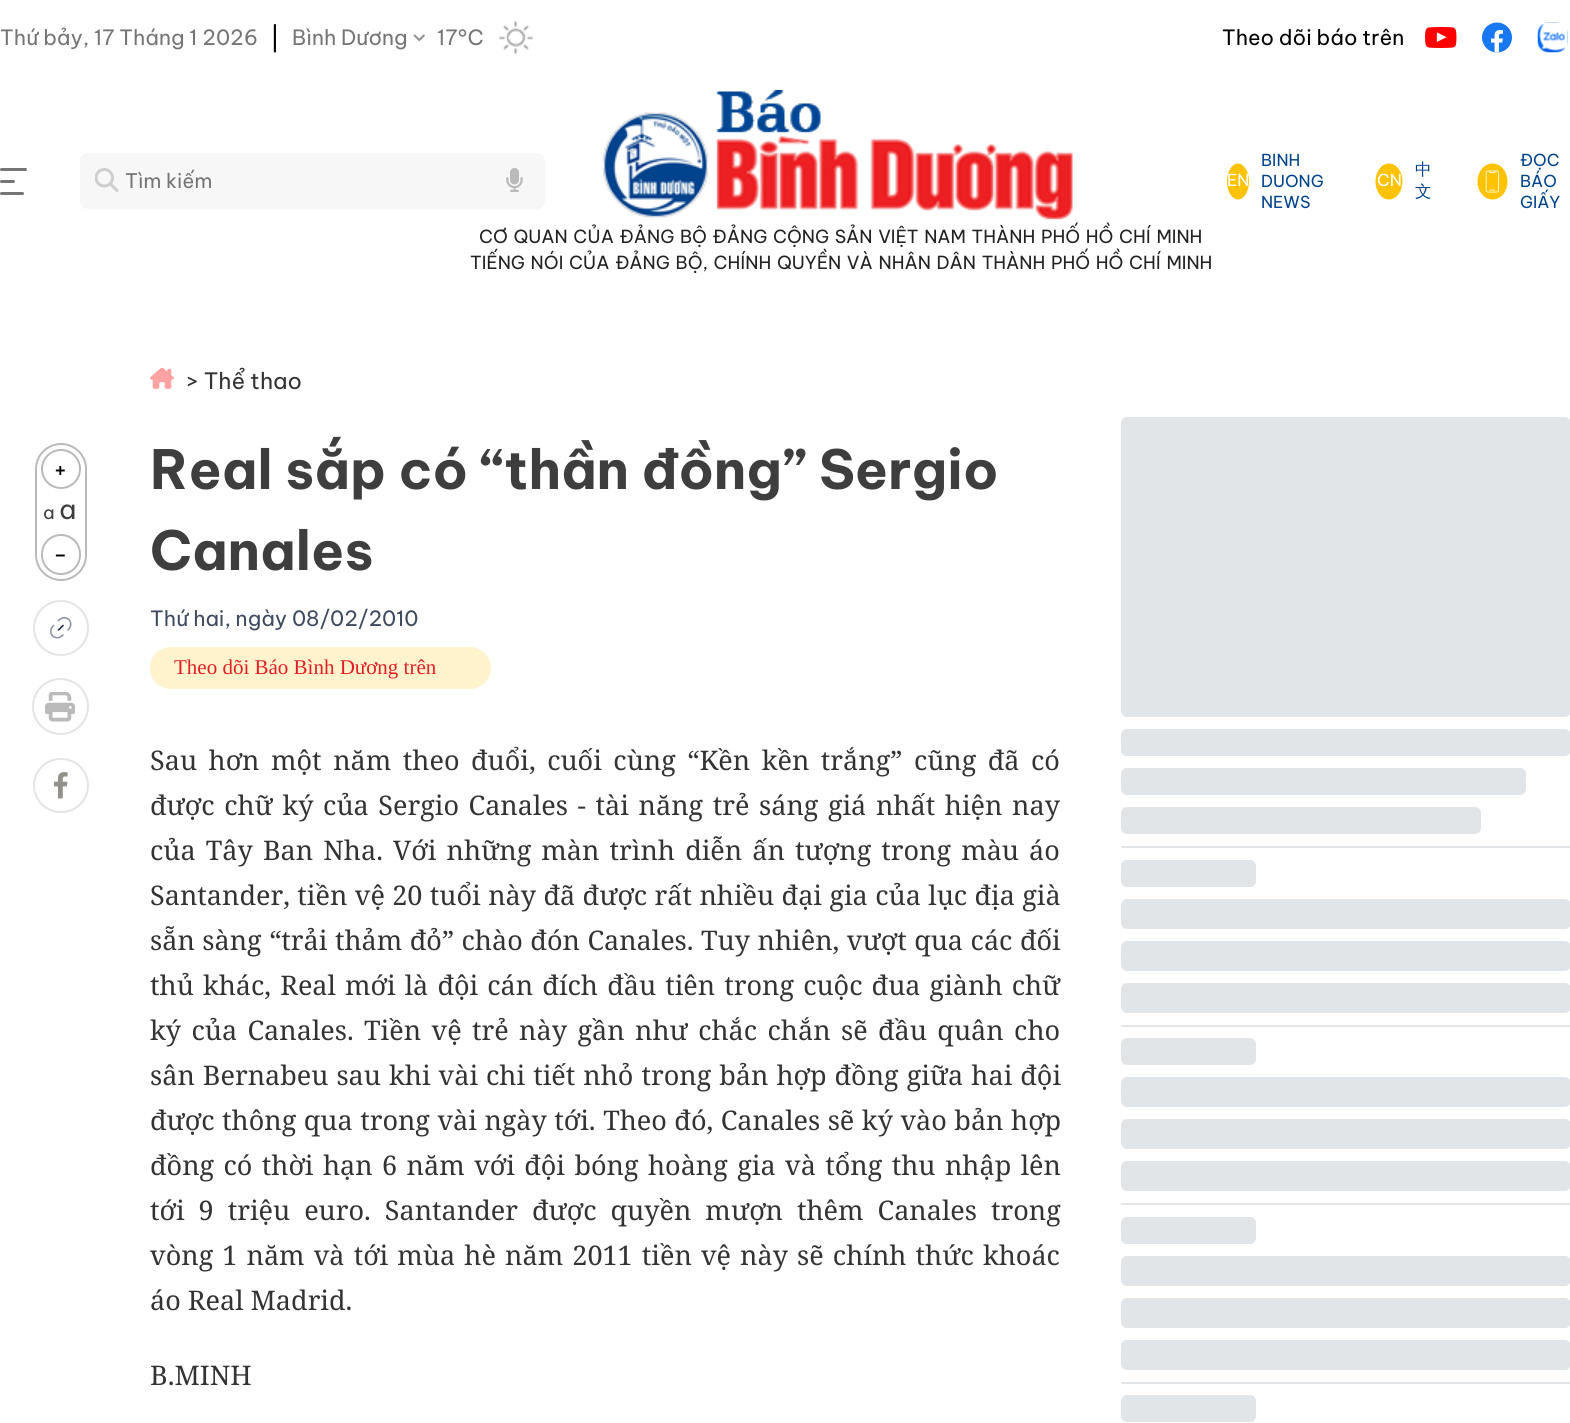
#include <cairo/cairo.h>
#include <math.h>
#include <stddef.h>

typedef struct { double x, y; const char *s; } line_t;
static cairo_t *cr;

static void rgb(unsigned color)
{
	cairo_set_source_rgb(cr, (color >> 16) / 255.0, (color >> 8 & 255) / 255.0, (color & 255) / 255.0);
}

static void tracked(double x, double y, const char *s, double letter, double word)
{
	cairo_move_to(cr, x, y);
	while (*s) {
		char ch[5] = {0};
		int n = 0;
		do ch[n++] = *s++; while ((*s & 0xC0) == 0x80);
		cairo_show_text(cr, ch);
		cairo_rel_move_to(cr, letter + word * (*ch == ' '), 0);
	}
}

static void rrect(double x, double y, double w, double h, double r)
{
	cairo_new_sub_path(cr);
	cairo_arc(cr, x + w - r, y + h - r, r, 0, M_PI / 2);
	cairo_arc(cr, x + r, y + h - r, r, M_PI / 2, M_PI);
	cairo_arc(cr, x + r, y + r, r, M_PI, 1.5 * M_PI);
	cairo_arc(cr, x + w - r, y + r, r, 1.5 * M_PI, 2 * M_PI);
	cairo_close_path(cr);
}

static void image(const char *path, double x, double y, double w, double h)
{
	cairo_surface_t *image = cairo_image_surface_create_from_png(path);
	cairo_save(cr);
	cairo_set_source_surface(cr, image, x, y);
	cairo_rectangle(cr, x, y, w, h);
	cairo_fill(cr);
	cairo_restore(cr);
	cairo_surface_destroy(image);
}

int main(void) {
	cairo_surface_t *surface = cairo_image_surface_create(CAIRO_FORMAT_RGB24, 1570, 1423);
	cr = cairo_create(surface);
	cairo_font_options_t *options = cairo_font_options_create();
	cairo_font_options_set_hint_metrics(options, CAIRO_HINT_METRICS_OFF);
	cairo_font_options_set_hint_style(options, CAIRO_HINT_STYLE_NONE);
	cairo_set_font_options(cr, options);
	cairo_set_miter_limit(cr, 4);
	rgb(0xffffff);
	cairo_paint(cr);
	image("img/1.png", 413, 34, 12, 7);
	image("img/2.png", 499, 21, 34, 33);
	image("img/3.png", 1425, 27, 32, 21);
	image("img/4.png", 1482, 22, 30, 31);
	image("img/5.png", 1537, 22, 31, 31);
	rgb(0x757575);
	rrect(0, 168, 27, 3, 1.5);
	cairo_fill(cr);
	rrect(0, 180, 15, 3, 1.5);
	cairo_fill(cr);
	rrect(0, 192, 24, 3, 1.5);
	cairo_fill(cr);
	rgb(0xf7f7f7);
	rrect(80, 153, 465, 56, 8);
	cairo_fill(cr);
	image("img/6.png", 95, 168, 24, 24);
	image("img/7.png", 506, 168, 17, 24);
	rgb(0xfdc202);
	cairo_new_path(cr);
	cairo_move_to(cr, 1238, 163.5);
	cairo_curve_to(cr, 1244, 163.5, 1249, 171.5, 1249, 181.5);
	cairo_curve_to(cr, 1249, 191.5, 1244, 199.5, 1238, 199.5);
	cairo_curve_to(cr, 1232, 199.5, 1227, 191.5, 1227, 181.5);
	cairo_curve_to(cr, 1227, 171.5, 1232, 163.5, 1238, 163.5);
	cairo_close_path(cr);
	cairo_fill(cr);
	cairo_new_path(cr);
	cairo_move_to(cr, 1389, 163.5);
	cairo_curve_to(cr, 1396.5, 163.5, 1402.5, 171.5, 1402.5, 181.5);
	cairo_curve_to(cr, 1402.5, 191.5, 1396.5, 199.5, 1389, 199.5);
	cairo_curve_to(cr, 1381.5, 199.5, 1375.5, 191.5, 1375.5, 181.5);
	cairo_curve_to(cr, 1375.5, 171.5, 1381.5, 163.5, 1389, 163.5);
	cairo_close_path(cr);
	cairo_fill(cr);
	cairo_new_path(cr);
	cairo_move_to(cr, 1492.5, 163.5);
	cairo_curve_to(cr, 1501, 163.5, 1507.5, 171.5, 1507.5, 181.5);
	cairo_curve_to(cr, 1507.5, 191.5, 1501, 199.5, 1492.5, 199.5);
	cairo_curve_to(cr, 1484, 199.5, 1477.5, 191.5, 1477.5, 181.5);
	cairo_curve_to(cr, 1477.5, 171.5, 1484, 163.5, 1492.5, 163.5);
	cairo_close_path(cr);
	cairo_fill(cr);
	image("img/8.png", 1485, 170, 14, 23);
	image("img/9.png", 602, 90, 471, 130);
	rrect(36, 444, 50, 136, 25);
	rgb(0xbababa);
	cairo_stroke(cr);
	cairo_arc(cr, 61, 469, 19, 0, 2 * M_PI);
	cairo_stroke(cr);
	rrect(42, 535, 38, 39, 19);
	cairo_stroke(cr);
	cairo_arc(cr, 61, 628, 27, 0, 2 * M_PI);
	rgb(0xe4e4e4);
	cairo_stroke(cr);
	cairo_new_path(cr);
	cairo_move_to(cr, 63, 635);
	cairo_curve_to(cr, 55.5, 642.5, 46, 633, 53.5, 625.5);
	rgb(0x8e93a6);
	cairo_set_line_width(cr, 1.6);
	cairo_set_line_cap(cr, CAIRO_LINE_CAP_ROUND);
	cairo_stroke(cr);
	cairo_new_path(cr);
	cairo_move_to(cr, 58.5, 630);
	cairo_line_to(cr, 63, 625.5);
	rgb(0x1c274c);
	cairo_stroke(cr);
	cairo_new_path(cr);
	cairo_move_to(cr, 58.5, 620.5);
	cairo_curve_to(cr, 66, 613, 75.5, 622.5, 68, 630);
	rgb(0x8e93a6);
	cairo_stroke(cr);
	cairo_arc(cr, 60.5, 706.5, 27.5, 0, 2 * M_PI);
	rgb(0xe4e4e4);
	cairo_set_line_width(cr, 2);
	cairo_set_line_cap(cr, CAIRO_LINE_CAP_BUTT);
	cairo_stroke(cr);
	image("img/10.png", 45, 692, 30, 30);
	rrect(34, 759, 54, 53, 26.5);
	cairo_stroke(cr);
	image("img/11.png", 53, 772, 15, 27);
	image("img/12.png", 150, 368, 24, 21);
	rgb(0xfff3cd);
	rrect(150, 647, 341, 42, 21);
	cairo_fill(cr);
	rgb(0xe2e5e7);
	rrect(1121, 417, 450, 300, 6);
	cairo_fill(cr);
	rrect(1121, 729, 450, 27, 6);
	cairo_fill(cr);
	rrect(1121, 768, 405, 27, 6);
	cairo_fill(cr);
	rrect(1121, 807, 360, 27, 6);
	cairo_fill(cr);
	rrect(1121, 846, 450, 2, 1);
	cairo_fill(cr);
	rrect(1121, 860, 135, 27, 6);
	cairo_fill(cr);
	rrect(1121, 899, 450, 30, 6);
	cairo_fill(cr);
	rrect(1121, 941, 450, 30, 6);
	cairo_fill(cr);
	rrect(1121, 983, 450, 30, 6);
	cairo_fill(cr);
	rrect(1121, 1025, 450, 2, 1);
	cairo_fill(cr);
	rrect(1121, 1038, 135, 27, 6);
	cairo_fill(cr);
	rrect(1121, 1077, 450, 30, 6);
	cairo_fill(cr);
	rrect(1121, 1119, 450, 30, 6);
	cairo_fill(cr);
	rrect(1121, 1161, 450, 30, 6);
	cairo_fill(cr);
	rrect(1121, 1203, 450, 2, 1);
	cairo_fill(cr);
	rrect(1121, 1217, 135, 27, 6);
	cairo_fill(cr);
	rrect(1121, 1256, 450, 30, 6);
	cairo_fill(cr);
	rrect(1121, 1298, 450, 30, 6);
	cairo_fill(cr);
	rrect(1121, 1340, 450, 30, 6);
	cairo_fill(cr);
	rrect(1121, 1382, 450, 2, 1);
	cairo_fill(cr);
	rrect(1121, 1395, 135, 27, 6);
	cairo_fill(cr);
	cairo_select_font_face(cr, "Be Vietnam Pro", CAIRO_FONT_SLANT_NORMAL, CAIRO_FONT_WEIGHT_NORMAL);
	cairo_set_font_size(cr, 21);
	rgb(0x757575);
	cairo_move_to(cr, 0, 45);
	cairo_show_text(cr, "Thứ bảy, 17 Tháng 1 2026");
	cairo_set_font_size(cr, 24);
	rgb(0x000000);
	cairo_move_to(cr, 270, 47);
	cairo_show_text(cr, "|");
	cairo_set_font_size(cr, 21);
	rgb(0x757575);
	cairo_move_to(cr, 292, 45);
	cairo_show_text(cr, "Bình Dương");
	cairo_move_to(cr, 437, 45);
	cairo_show_text(cr, "17°C");
	rgb(0x000000);
	cairo_move_to(cr, 1222, 45);
	cairo_show_text(cr, "Theo dõi báo trên");
	cairo_set_font_size(cr, 20);
	rgb(0x757575);
	cairo_move_to(cr, 125, 188);
	cairo_show_text(cr, "Tìm kiếm");
	cairo_set_font_size(cr, 16.5);
	rgb(0xffffff);
	cairo_move_to(cr, 1227, 186);
	cairo_show_text(cr, "EN");
	rgb(0x01448d);
	{
		static const line_t items[] = {
			{1261, 166, "BINH"},
			{1261, 187, "DUONG"},
			{1261, 208, "NEWS"},
		};
		for (size_t i = 0; i < sizeof items / sizeof *items; i++) {
			cairo_move_to(cr, items[i].x, items[i].y);
			cairo_show_text(cr, items[i].s);
		}
	}
	rgb(0xffffff);
	cairo_move_to(cr, 1377, 186);
	cairo_show_text(cr, "CN");
	cairo_select_font_face(cr, "WenQuanYi Zen Hei Medium", CAIRO_FONT_SLANT_NORMAL, CAIRO_FONT_WEIGHT_NORMAL);
	rgb(0x01448d);
	cairo_move_to(cr, 1415, 175);
	cairo_show_text(cr, "中");
	cairo_move_to(cr, 1415, 197);
	cairo_show_text(cr, "文");
	cairo_select_font_face(cr, "Be Vietnam Pro", CAIRO_FONT_SLANT_NORMAL, CAIRO_FONT_WEIGHT_NORMAL);
	{
		static const line_t items[] = {
			{1520, 166, "ĐỌC"},
			{1520, 187, "BÁO"},
			{1520, 208, "GIẤY"},
		};
		for (size_t i = 0; i < sizeof items / sizeof *items; i++) {
			cairo_move_to(cr, items[i].x, items[i].y);
			cairo_show_text(cr, items[i].s);
		}
	}
	cairo_set_font_size(cr, 18);
	rgb(0x222222);
	tracked(479, 243, "CƠ QUAN CỦA ĐẢNG BỘ ĐẢNG CỘNG SẢN VIỆT NAM THÀNH PHỐ HỒ CHÍ MINH", 0, 1.5);
	tracked(470, 269, "TIẾNG NÓI CỦA ĐẢNG BỘ, CHÍNH QUYỀN VÀ NHÂN DÂN THÀNH PHỐ HỒ CHÍ MINH", 0, 1.5);
	cairo_set_font_size(cr, 24);
	rgb(0x000000);
	cairo_move_to(cr, 53, 478);
	cairo_show_text(cr, "+");
	cairo_set_font_size(cr, 18);
	rgb(0x3e3e3e);
	cairo_move_to(cr, 43, 519);
	cairo_show_text(cr, "a");
	cairo_set_font_size(cr, 27);
	cairo_move_to(cr, 59, 519);
	cairo_show_text(cr, "a");
	cairo_set_font_size(cr, 24);
	rgb(0x000000);
	cairo_move_to(cr, 53, 563);
	cairo_show_text(cr, "-");
	cairo_set_font_size(cr, 22.5);
	rgb(0x333333);
	cairo_move_to(cr, 186, 389);
	cairo_show_text(cr, "> Thể thao");
	cairo_select_font_face(cr, "Be Vietnam Pro", CAIRO_FONT_SLANT_NORMAL, CAIRO_FONT_WEIGHT_BOLD);
	cairo_set_font_size(cr, 54);
	rgb(0x3e3e3e);
	cairo_move_to(cr, 150, 489);
	cairo_show_text(cr, "Real sắp có “thần đồng” Sergio");
	cairo_move_to(cr, 150, 570);
	cairo_show_text(cr, "Canales");
	cairo_select_font_face(cr, "Be Vietnam Pro", CAIRO_FONT_SLANT_NORMAL, CAIRO_FONT_WEIGHT_NORMAL);
	cairo_set_font_size(cr, 21);
	rgb(0x3f4a5f);
	cairo_move_to(cr, 150, 626);
	cairo_show_text(cr, "Thứ hai, ngày 08/02/2010");
	cairo_select_font_face(cr, "Liberation Serif", CAIRO_FONT_SLANT_NORMAL, CAIRO_FONT_WEIGHT_NORMAL);
	rgb(0xe21f26);
	cairo_move_to(cr, 174, 674);
	cairo_show_text(cr, "Theo dõi Báo Bình Dương trên");
	cairo_select_font_face(cr, "Noto Serif", CAIRO_FONT_SLANT_NORMAL, CAIRO_FONT_WEIGHT_NORMAL);
	cairo_set_font_size(cr, 27);
	rgb(0x333333);
	tracked(150, 770, "Sau hơn một năm theo đuổi, cuối cùng “Kền kền trắng” cũng đã có", 0, 4.5);
	tracked(150, 815, "được chữ ký của Sergio Canales - tài năng trẻ sáng giá nhất hiện nay", 0, 2.6);
	tracked(150, 860, "của Tây Ban Nha. Với những màn trình diễn ấn tượng trong màu áo", 0, 3.1);
	tracked(150, 905, "Santander, tiền vệ 20 tuổi này đã được rất nhiều đại gia của lục địa già", 0, 0.4);
	tracked(150, 950, "sẵn sàng “trải thảm đỏ” chào đón Canales. Tuy nhiên, vượt qua các đối", 0, 0.5);
	tracked(150, 995, "thủ khác, Real mới là đội cán đích đầu tiên trong cuộc đua giành chữ", 0, 2.1);
	tracked(150, 1040, "ký của Canales. Tiền vệ trẻ này gần như chắc chắn sẽ đầu quân cho", 0, 3.4);
	tracked(150, 1085, "sân Bernabeu sau khi vài chi tiết nhỏ trong bản hợp đồng giữa hai đội", 0, 1);
	tracked(150, 1130, "được thông qua trong vài ngày tới. Theo đó, Canales sẽ ký vào bản hợp", 0, 0.5);
	tracked(150, 1175, "đồng có thời hạn 6 năm với đội bóng hoàng gia và tổng thu nhập lên", 0, 2.4);
	tracked(150, 1220, "tới 9 triệu euro. Santander được quyền mượn thêm Canales trong", 0, 7);
	tracked(150, 1265, "vòng 1 năm và tới mùa hè năm 2011 tiền vệ này sẽ chính thức khoác", 0, 2.1);
	cairo_move_to(cr, 150, 1310);
	cairo_show_text(cr, "áo Real Madrid.");
	cairo_move_to(cr, 150, 1385);
	cairo_show_text(cr, "B.MINH");
	cairo_surface_write_to_png(surface, "page.png");
	cairo_font_options_destroy(options);
	cairo_destroy(cr);
	cairo_surface_destroy(surface);
	return 0;
}
